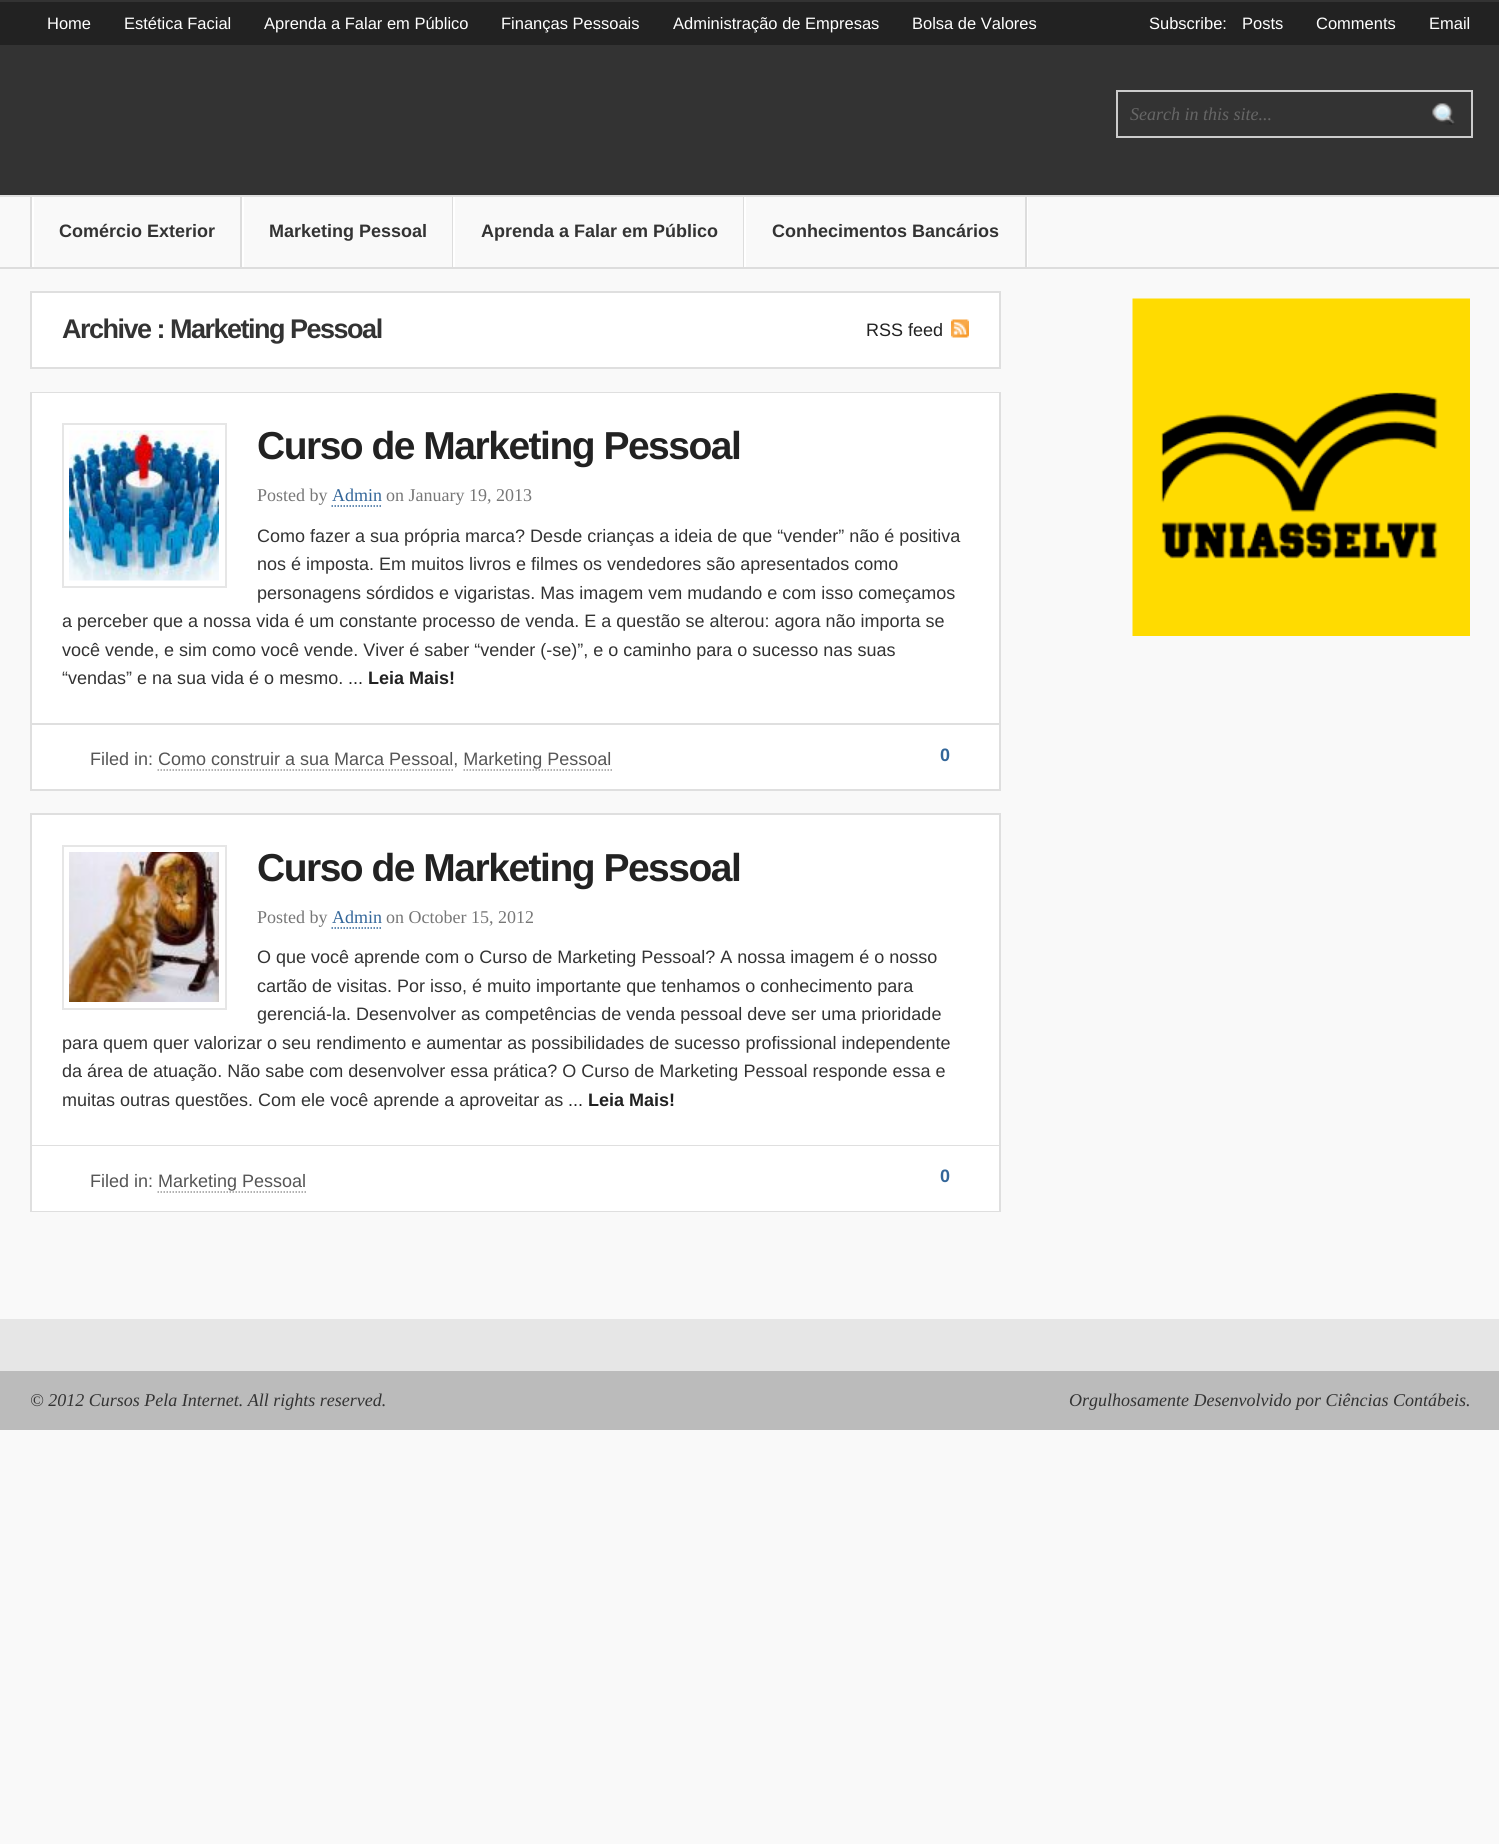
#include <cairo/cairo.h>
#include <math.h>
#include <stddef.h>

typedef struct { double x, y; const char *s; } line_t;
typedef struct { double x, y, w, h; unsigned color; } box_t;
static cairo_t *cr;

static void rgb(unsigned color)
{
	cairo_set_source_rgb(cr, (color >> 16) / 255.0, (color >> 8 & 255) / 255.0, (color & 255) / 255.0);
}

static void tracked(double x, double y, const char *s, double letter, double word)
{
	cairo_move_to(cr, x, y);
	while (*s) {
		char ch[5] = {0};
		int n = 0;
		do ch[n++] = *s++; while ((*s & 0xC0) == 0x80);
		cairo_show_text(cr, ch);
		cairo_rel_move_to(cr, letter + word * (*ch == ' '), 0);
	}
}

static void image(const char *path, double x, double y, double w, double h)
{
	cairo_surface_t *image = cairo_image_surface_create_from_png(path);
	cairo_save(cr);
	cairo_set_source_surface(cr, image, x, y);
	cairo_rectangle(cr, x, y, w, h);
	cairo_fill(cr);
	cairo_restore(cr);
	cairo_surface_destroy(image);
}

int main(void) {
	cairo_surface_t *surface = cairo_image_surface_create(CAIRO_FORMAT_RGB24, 1499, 1844);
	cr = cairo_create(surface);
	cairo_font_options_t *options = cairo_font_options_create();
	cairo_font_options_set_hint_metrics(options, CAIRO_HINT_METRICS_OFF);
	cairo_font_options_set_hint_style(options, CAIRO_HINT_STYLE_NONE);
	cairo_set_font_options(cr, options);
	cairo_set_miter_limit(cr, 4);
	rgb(0xf9f9f9);
	cairo_paint(cr);
	{
		static const box_t items[] = {
			{0, 2, 1499, 43, 0x222222},
			{0, 0, 1499, 2, 0x333333},
			{0, 45, 1499, 150, 0x333333},
		};
		for (size_t i = 0; i < sizeof items / sizeof *items; i++) {
			rgb(items[i].color);
			cairo_rectangle(cr, items[i].x, items[i].y, items[i].w, items[i].h);
			cairo_fill(cr);
		}
	}
	cairo_rectangle(cr, 1117, 91, 355, 46);
	rgb(0xcccccc);
	cairo_stroke(cr);
	image("img/1.png", 1432, 103, 23, 22);
	{
		static const box_t items[] = {
			{0, 195, 1499, 2, 0xdfdfdf},
			{0, 267, 1499, 2, 0xdddddd},
			{1027, 197, 1, 70, 0xffffff},
			{30, 197, 2, 70, 0xdddddd},
			{240, 197, 2, 70, 0xdddddd},
			{32, 197, 2, 70, 0xffffff},
			{452, 197, 1, 70, 0xdddddd},
			{242, 197, 2, 70, 0xffffff},
			{743, 197, 1, 70, 0xdddddd},
			{453, 197, 2, 70, 0xffffff},
			{1025, 197, 2, 70, 0xdddddd},
			{744, 197, 2, 70, 0xffffff},
		};
		for (size_t i = 0; i < sizeof items / sizeof *items; i++) {
			rgb(items[i].color);
			cairo_rectangle(cr, items[i].x, items[i].y, items[i].w, items[i].h);
			cairo_fill(cr);
		}
	}
	cairo_rectangle(cr, 31, 292, 969, 76);
	cairo_fill_preserve(cr);
	rgb(0xdfdfdf);
	cairo_stroke(cr);
	image("img/2.png", 951, 319, 18, 19);
	cairo_rectangle(cr, 31, 393, 969, 397);
	cairo_stroke(cr);
	rgb(0xffffff);
	cairo_rectangle(cr, 32, 393, 967, 330);
	cairo_fill(cr);
	rgb(0xdfdfdf);
	cairo_rectangle(cr, 32, 723, 967, 2);
	cairo_fill(cr);
	cairo_rectangle(cr, 63, 424, 163, 163);
	rgb(0xe6e6e6);
	cairo_stroke(cr);
	image("img/3.png", 69, 430, 150, 151);
	cairo_new_path(cr);
	cairo_move_to(cr, 331.5, 506);
	cairo_line_to(cr, 381, 506);
	rgb(0x336699);
	cairo_set_line_width(cr, 1.5);
	cairo_set_dash(cr, (double[]){1.5, 1.5}, 2, 0);
	cairo_stroke(cr);
	rgb(0xffffff);
	cairo_rectangle(cr, 32, 725, 967, 64);
	cairo_fill(cr);
	cairo_new_path(cr);
	cairo_move_to(cr, 157.5, 770);
	cairo_line_to(cr, 453, 770);
	rgb(0x999999);
	cairo_stroke(cr);
	cairo_new_path(cr);
	cairo_move_to(cr, 463.5, 770);
	cairo_line_to(cr, 612, 770);
	cairo_stroke(cr);
	cairo_rectangle(cr, 31, 814, 969, 397);
	rgb(0xdfdfdf);
	cairo_set_line_width(cr, 2);
	cairo_set_dash(cr, NULL, 0, 0);
	cairo_stroke(cr);
	rgb(0xffffff);
	cairo_rectangle(cr, 32, 815, 967, 330);
	cairo_fill(cr);
	rgb(0xdfdfdf);
	cairo_rectangle(cr, 32, 1145, 967, 1);
	cairo_fill(cr);
	cairo_rectangle(cr, 63, 846, 163, 163);
	rgb(0xe6e6e6);
	cairo_stroke(cr);
	image("img/4.png", 69, 852, 150, 150);
	cairo_new_path(cr);
	cairo_move_to(cr, 331.5, 928);
	cairo_line_to(cr, 381, 928);
	rgb(0x336699);
	cairo_set_line_width(cr, 1.5);
	cairo_set_dash(cr, (double[]){1.5, 1.5}, 2, 0);
	cairo_stroke(cr);
	rgb(0xffffff);
	cairo_rectangle(cr, 32, 1146, 967, 65);
	cairo_fill(cr);
	cairo_new_path(cr);
	cairo_move_to(cr, 157.5, 1192);
	cairo_line_to(cr, 306, 1192);
	rgb(0x999999);
	cairo_stroke(cr);
	image("img/5.png", 1132, 298, 338, 338);
	rgb(0xe6e6e6);
	cairo_rectangle(cr, 0, 1319, 1499, 52);
	cairo_fill(cr);
	rgb(0xbbbbbb);
	cairo_rectangle(cr, 0, 1371, 1499, 59);
	cairo_fill(cr);
	cairo_select_font_face(cr, "Liberation Sans", CAIRO_FONT_SLANT_NORMAL, CAIRO_FONT_WEIGHT_NORMAL);
	cairo_set_font_size(cr, 16.5);
	rgb(0xffffff);
	{
		static const line_t items[] = {
			{47, 29, "Home"},
			{124, 29, "Estética Facial"},
			{264, 29, "Aprenda a Falar em Público"},
			{501, 29, "Finanças Pessoais"},
			{673, 29, "Administração de Empresas"},
			{912, 29, "Bolsa de Valores"},
			{1149, 29, "Subscribe:"},
			{1242, 29, "Posts"},
			{1316, 29, "Comments"},
			{1429, 29, "Email"},
		};
		for (size_t i = 0; i < sizeof items / sizeof *items; i++) {
			cairo_move_to(cr, items[i].x, items[i].y);
			cairo_show_text(cr, items[i].s);
		}
	}
	cairo_select_font_face(cr, "Liberation Serif", CAIRO_FONT_SLANT_ITALIC, CAIRO_FONT_WEIGHT_NORMAL);
	cairo_set_font_size(cr, 18);
	rgb(0x666666);
	cairo_move_to(cr, 1130, 120);
	cairo_show_text(cr, "Search in this site...");
	cairo_select_font_face(cr, "Liberation Sans", CAIRO_FONT_SLANT_NORMAL, CAIRO_FONT_WEIGHT_BOLD);
	rgb(0x333333);
	{
		static const line_t items[] = {
			{59, 237, "Comércio Exterior"},
			{269, 237, "Marketing Pessoal"},
			{481, 237, "Aprenda a Falar em Público"},
			{772, 237, "Conhecimentos Bancários"},
		};
		for (size_t i = 0; i < sizeof items / sizeof *items; i++) {
			cairo_move_to(cr, items[i].x, items[i].y);
			cairo_show_text(cr, items[i].s);
		}
	}
	cairo_set_font_size(cr, 27);
	tracked(62, 338, "Archive : Marketing Pessoal", -1.5, 0);
	cairo_select_font_face(cr, "Liberation Sans", CAIRO_FONT_SLANT_NORMAL, CAIRO_FONT_WEIGHT_NORMAL);
	cairo_set_font_size(cr, 18);
	rgb(0x222222);
	cairo_move_to(cr, 866, 336);
	cairo_show_text(cr, "RSS feed");
	cairo_select_font_face(cr, "Liberation Sans", CAIRO_FONT_SLANT_NORMAL, CAIRO_FONT_WEIGHT_BOLD);
	cairo_set_font_size(cr, 39);
	tracked(257, 459, "Curso de Marketing Pessoal", -1.5, 0);
	cairo_select_font_face(cr, "Liberation Serif", CAIRO_FONT_SLANT_NORMAL, CAIRO_FONT_WEIGHT_NORMAL);
	cairo_set_font_size(cr, 18);
	rgb(0x777777);
	cairo_move_to(cr, 257, 501);
	cairo_show_text(cr, "Posted by");
	rgb(0x336699);
	cairo_move_to(cr, 332, 501);
	cairo_show_text(cr, "Admin");
	rgb(0x777777);
	cairo_move_to(cr, 386, 501);
	cairo_show_text(cr, "on January 19, 2013");
	cairo_select_font_face(cr, "Liberation Sans", CAIRO_FONT_SLANT_NORMAL, CAIRO_FONT_WEIGHT_NORMAL);
	rgb(0x333333);
	{
		static const line_t items[] = {
			{257, 542, "Como fazer a sua própria marca? Desde crianças a ideia de que “vender” não é positiva"},
			{257, 570, "nos é imposta. Em muitos livros e filmes os vendedores são apresentados como"},
			{257, 599, "personagens sórdidos e vigaristas. Mas imagem vem mudando e com isso começamos"},
			{62, 627, "a perceber que a nossa vida é um constante processo de venda. E a questão se alterou: agora não importa se"},
			{62, 656, "você vende, e sim como você vende. Viver é saber “vender (-se)”, e o caminho para o sucesso nas suas"},
			{62, 684, "“vendas” e na sua vida é o mesmo."},
		};
		for (size_t i = 0; i < sizeof items / sizeof *items; i++) {
			cairo_move_to(cr, items[i].x, items[i].y);
			cairo_show_text(cr, items[i].s);
		}
	}
	rgb(0x222222);
	cairo_move_to(cr, 348, 684);
	cairo_show_text(cr, "...");
	cairo_select_font_face(cr, "Liberation Sans", CAIRO_FONT_SLANT_NORMAL, CAIRO_FONT_WEIGHT_BOLD);
	cairo_move_to(cr, 368, 684);
	cairo_show_text(cr, "Leia Mais!");
	cairo_select_font_face(cr, "Liberation Sans", CAIRO_FONT_SLANT_NORMAL, CAIRO_FONT_WEIGHT_NORMAL);
	rgb(0x555555);
	cairo_move_to(cr, 90, 765);
	cairo_show_text(cr, "Filed in: Como construir a sua Marca Pessoal, Marketing Pessoal");
	cairo_select_font_face(cr, "Liberation Sans", CAIRO_FONT_SLANT_NORMAL, CAIRO_FONT_WEIGHT_BOLD);
	rgb(0x336699);
	cairo_move_to(cr, 940, 761);
	cairo_show_text(cr, "0");
	cairo_set_font_size(cr, 39);
	rgb(0x222222);
	tracked(257, 881, "Curso de Marketing Pessoal", -1.5, 0);
	cairo_select_font_face(cr, "Liberation Serif", CAIRO_FONT_SLANT_NORMAL, CAIRO_FONT_WEIGHT_NORMAL);
	cairo_set_font_size(cr, 18);
	rgb(0x777777);
	cairo_move_to(cr, 257, 923);
	cairo_show_text(cr, "Posted by");
	rgb(0x336699);
	cairo_move_to(cr, 332, 923);
	cairo_show_text(cr, "Admin");
	rgb(0x777777);
	cairo_move_to(cr, 386, 923);
	cairo_show_text(cr, "on October 15, 2012");
	cairo_select_font_face(cr, "Liberation Sans", CAIRO_FONT_SLANT_NORMAL, CAIRO_FONT_WEIGHT_NORMAL);
	rgb(0x333333);
	{
		static const line_t items[] = {
			{257, 963, "O que você aprende com o Curso de Marketing Pessoal? A nossa imagem é o nosso"},
			{257, 992, "cartão de visitas. Por isso, é muito importante que tenhamos o conhecimento para"},
			{257, 1020, "gerenciá-la. Desenvolver as competências de venda pessoal deve ser uma prioridade"},
			{62, 1049, "para quem quer valorizar o seu rendimento e aumentar as possibilidades de sucesso profissional independente"},
			{62, 1077, "da área de atuação. Não sabe com desenvolver essa prática? O Curso de Marketing Pessoal responde essa e"},
			{62, 1106, "muitas outras questões. Com ele você aprende a aproveitar as"},
		};
		for (size_t i = 0; i < sizeof items / sizeof *items; i++) {
			cairo_move_to(cr, items[i].x, items[i].y);
			cairo_show_text(cr, items[i].s);
		}
	}
	rgb(0x222222);
	cairo_move_to(cr, 568, 1106);
	cairo_show_text(cr, "...");
	cairo_select_font_face(cr, "Liberation Sans", CAIRO_FONT_SLANT_NORMAL, CAIRO_FONT_WEIGHT_BOLD);
	cairo_move_to(cr, 588, 1106);
	cairo_show_text(cr, "Leia Mais!");
	cairo_select_font_face(cr, "Liberation Sans", CAIRO_FONT_SLANT_NORMAL, CAIRO_FONT_WEIGHT_NORMAL);
	rgb(0x555555);
	cairo_move_to(cr, 90, 1187);
	cairo_show_text(cr, "Filed in: Marketing Pessoal");
	cairo_select_font_face(cr, "Liberation Sans", CAIRO_FONT_SLANT_NORMAL, CAIRO_FONT_WEIGHT_BOLD);
	rgb(0x336699);
	cairo_move_to(cr, 940, 1182);
	cairo_show_text(cr, "0");
	cairo_select_font_face(cr, "Liberation Serif", CAIRO_FONT_SLANT_ITALIC, CAIRO_FONT_WEIGHT_NORMAL);
	rgb(0x333333);
	cairo_move_to(cr, 30, 1406);
	cairo_show_text(cr, "© 2012 Cursos Pela Internet. All rights reserved.");
	cairo_move_to(cr, 1069, 1406);
	cairo_show_text(cr, "Orgulhosamente Desenvolvido por Ciências Contábeis.");
	cairo_surface_write_to_png(surface, "page.png");
	cairo_font_options_destroy(options);
	cairo_destroy(cr);
	cairo_surface_destroy(surface);
	return 0;
}
